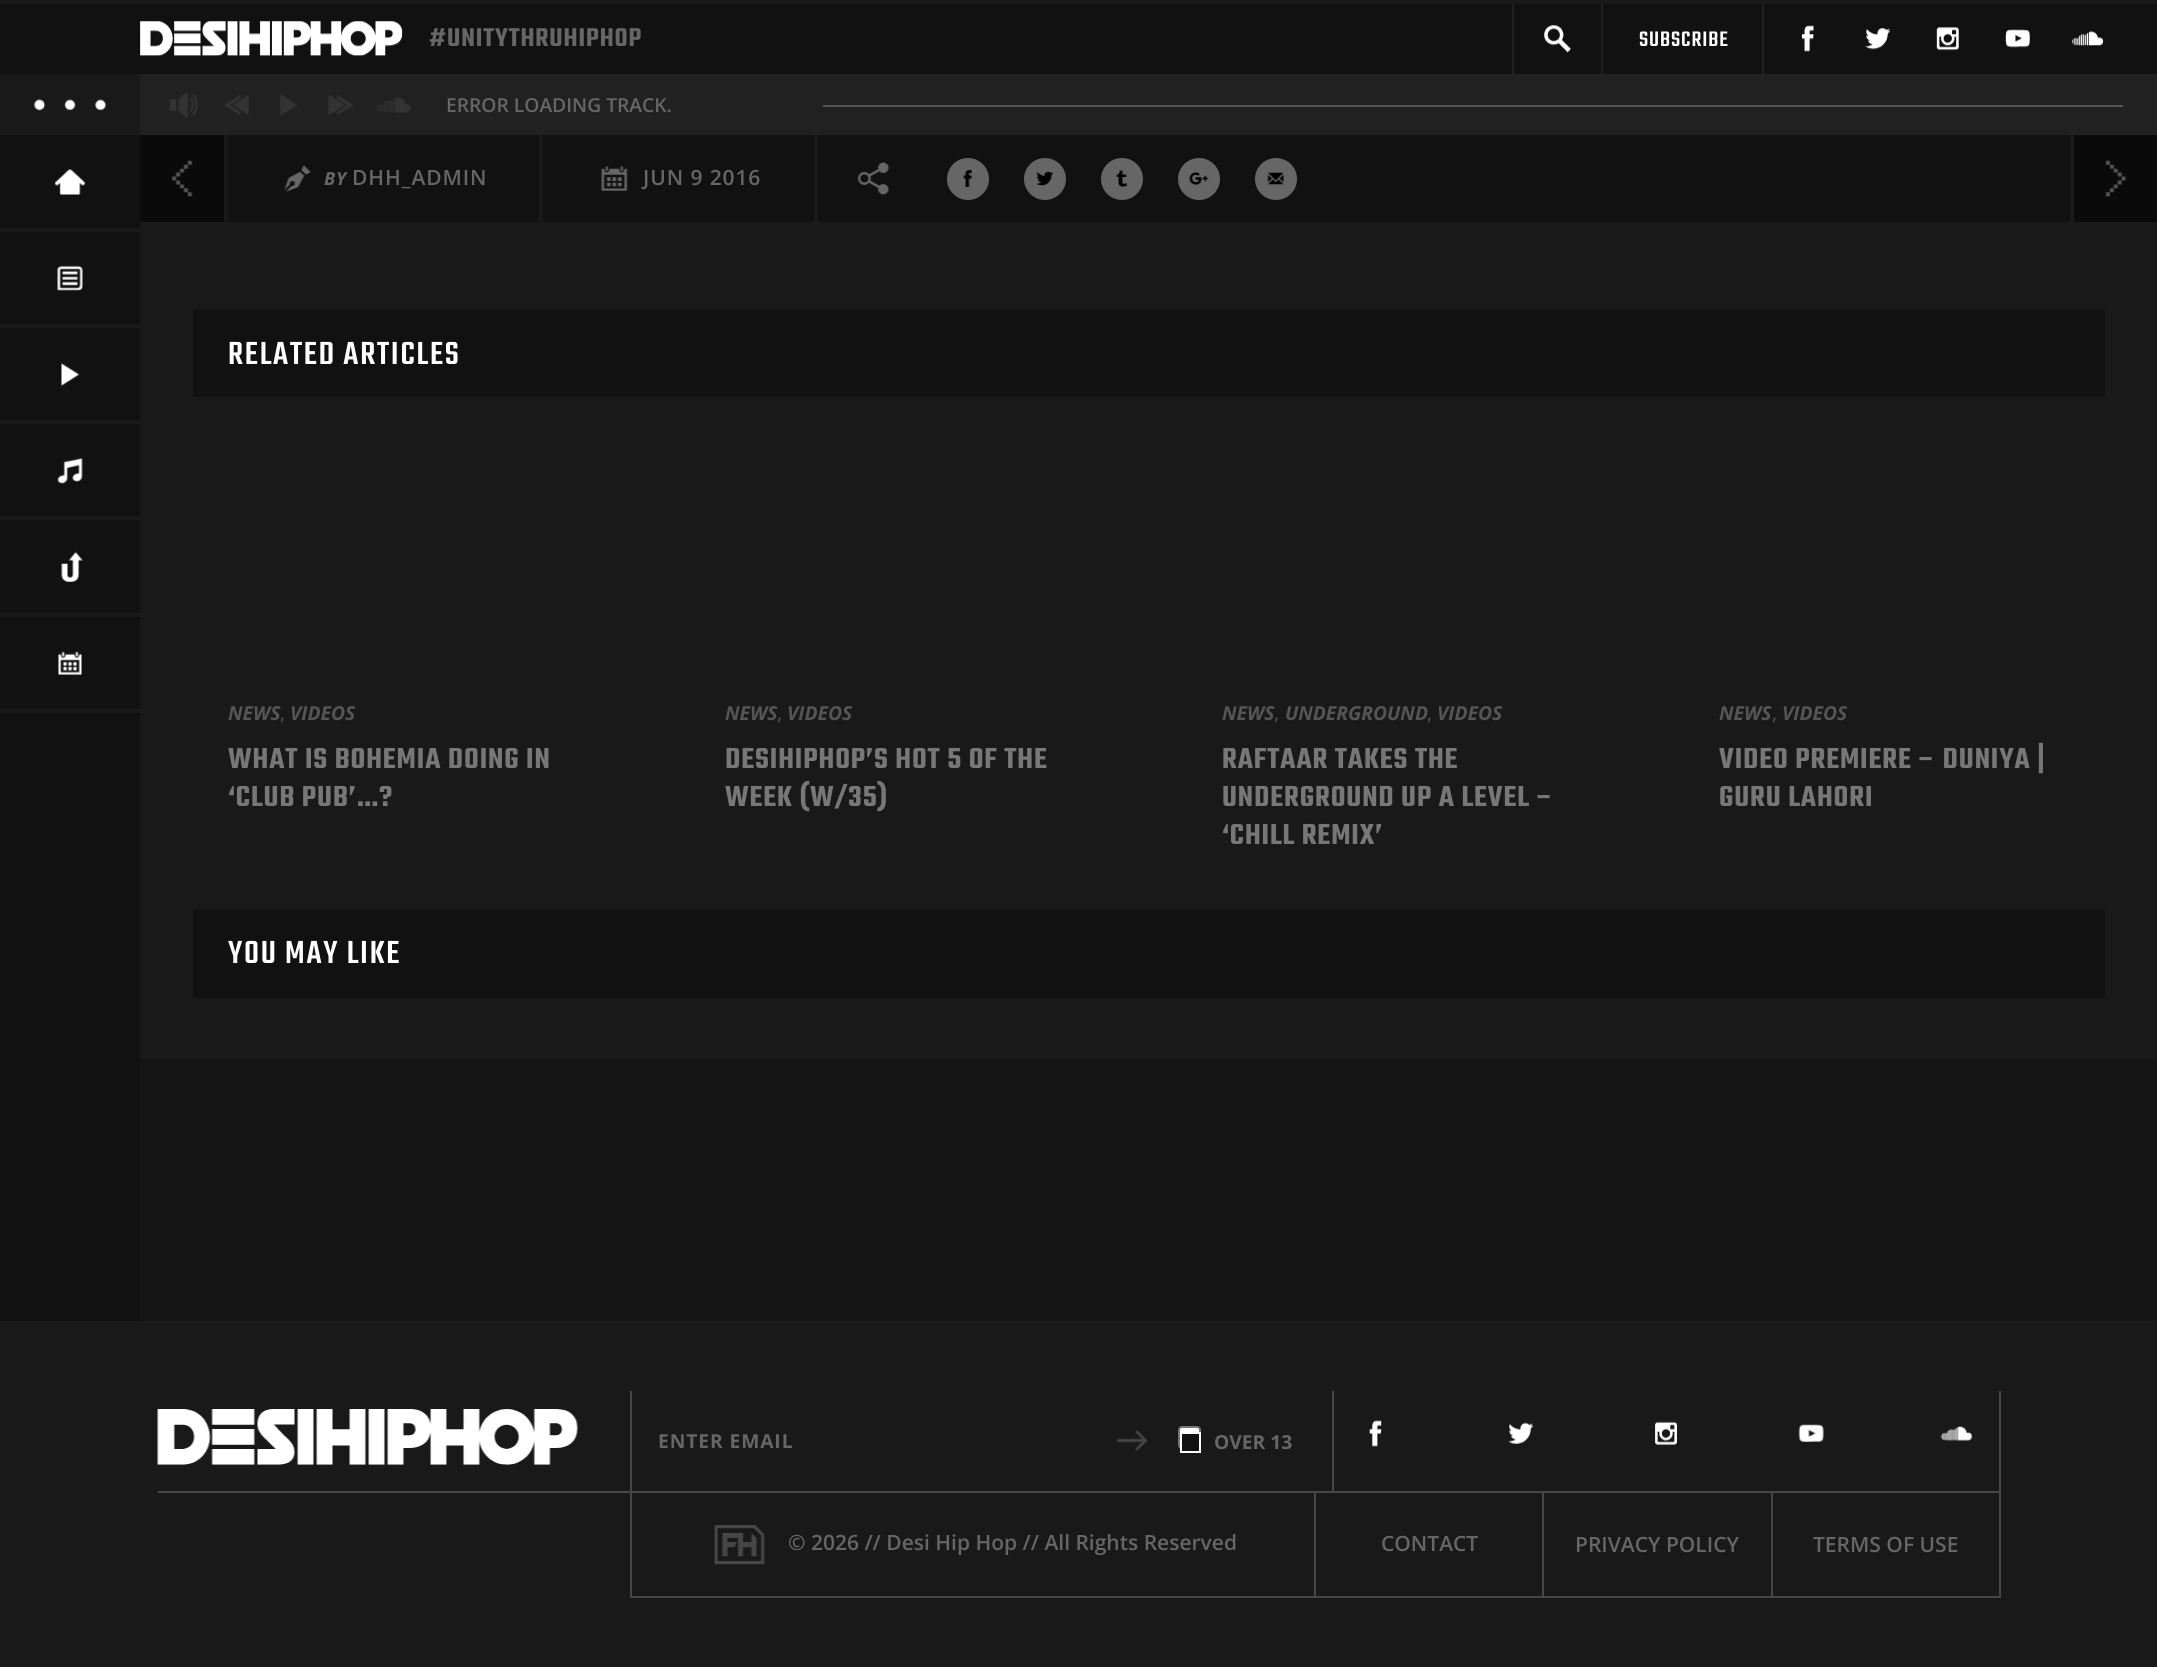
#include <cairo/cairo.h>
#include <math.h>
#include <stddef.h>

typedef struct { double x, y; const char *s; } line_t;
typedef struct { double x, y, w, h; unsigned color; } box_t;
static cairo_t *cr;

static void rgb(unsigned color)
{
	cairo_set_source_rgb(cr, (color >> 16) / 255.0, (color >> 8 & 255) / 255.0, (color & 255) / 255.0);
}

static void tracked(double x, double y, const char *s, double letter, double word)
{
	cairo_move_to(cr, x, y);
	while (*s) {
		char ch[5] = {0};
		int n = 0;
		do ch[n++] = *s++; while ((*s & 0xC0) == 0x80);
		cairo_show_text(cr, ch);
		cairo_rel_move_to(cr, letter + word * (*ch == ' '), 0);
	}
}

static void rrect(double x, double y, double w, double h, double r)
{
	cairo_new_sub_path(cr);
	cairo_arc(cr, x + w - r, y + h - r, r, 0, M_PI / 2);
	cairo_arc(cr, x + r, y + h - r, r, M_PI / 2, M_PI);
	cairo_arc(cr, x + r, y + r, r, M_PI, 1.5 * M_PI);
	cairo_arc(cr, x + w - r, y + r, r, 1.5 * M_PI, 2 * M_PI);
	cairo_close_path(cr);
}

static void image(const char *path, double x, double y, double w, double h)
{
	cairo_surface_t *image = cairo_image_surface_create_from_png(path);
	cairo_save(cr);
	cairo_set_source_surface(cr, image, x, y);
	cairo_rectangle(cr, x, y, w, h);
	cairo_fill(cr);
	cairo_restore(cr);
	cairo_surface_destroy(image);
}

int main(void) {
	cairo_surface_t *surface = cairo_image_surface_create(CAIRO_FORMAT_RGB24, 2157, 1667);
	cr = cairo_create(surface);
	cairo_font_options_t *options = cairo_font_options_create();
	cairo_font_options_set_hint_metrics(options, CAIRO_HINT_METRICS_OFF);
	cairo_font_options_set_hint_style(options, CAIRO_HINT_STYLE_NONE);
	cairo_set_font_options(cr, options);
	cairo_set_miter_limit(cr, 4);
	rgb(0x191919);
	cairo_paint(cr);
	rgb(0x111111);
	cairo_rectangle(cr, 0, 4, 2157, 70);
	cairo_fill(cr);
	image("img/1.png", 140, 21, 263, 35);
	rgb(0x212121);
	cairo_rectangle(cr, 1512, 4, 2, 70);
	cairo_fill(cr);
	image("img/2.png", 1544, 25, 27, 28);
	cairo_rectangle(cr, 1601, 4, 2, 70);
	cairo_fill(cr);
	cairo_rectangle(cr, 1762, 4, 2, 70);
	cairo_fill(cr);
	image("img/3.png", 1801, 25, 13, 27);
	image("img/4.png", 1865, 28, 26, 22);
	image("img/5.png", 1936, 27, 23, 24);
	image("img/6.png", 2005, 29, 25, 19);
	image("img/7.png", 2072, 31, 32, 15);
	cairo_rectangle(cr, 140, 74, 2017, 61);
	cairo_fill(cr);
	image("img/8.png", 34, 99, 73, 12);
	image("img/9.png", 169, 92, 29, 26);
	image("img/10.png", 224, 95, 25, 20);
	image("img/11.png", 280, 94, 17, 22);
	image("img/12.png", 328, 95, 25, 20);
	image("img/13.png", 376, 97, 35, 16);
	{
		static const box_t items[] = {
			{823, 105, 1300, 2, 0x555555},
			{0, 135, 140, 1186, 0x111111},
			{0, 228, 140, 4, 0x191919},
		};
		for (size_t i = 0; i < sizeof items / sizeof *items; i++) {
			rgb(items[i].color);
			cairo_rectangle(cr, items[i].x, items[i].y, items[i].w, items[i].h);
			cairo_fill(cr);
		}
	}
	image("img/14.png", 54, 169, 32, 26);
	cairo_rectangle(cr, 0, 324, 140, 4);
	cairo_fill(cr);
	image("img/15.png", 57, 265, 26, 26);
	cairo_rectangle(cr, 0, 420, 140, 4);
	cairo_fill(cr);
	image("img/16.png", 61, 363, 19, 23);
	cairo_rectangle(cr, 0, 516, 140, 4);
	cairo_fill(cr);
	image("img/17.png", 57, 458, 26, 26);
	cairo_rectangle(cr, 0, 613, 140, 4);
	cairo_fill(cr);
	image("img/18.png", 61, 551, 22, 31);
	cairo_rectangle(cr, 0, 709, 140, 4);
	cairo_fill(cr);
	image("img/19.png", 58, 651, 24, 24);
	rgb(0x111111);
	cairo_rectangle(cr, 228, 135, 1842, 87);
	cairo_fill(cr);
	rgb(0x0a0a0a);
	cairo_rectangle(cr, 140, 135, 84, 87);
	cairo_fill(cr);
	image("img/20.png", 171, 160, 22, 37);
	rgb(0x191919);
	cairo_rectangle(cr, 539, 135, 4, 87);
	cairo_fill(cr);
	image("img/21.png", 284, 165, 27, 27);
	cairo_rectangle(cr, 814, 135, 4, 87);
	cairo_fill(cr);
	image("img/22.png", 601, 166, 27, 25);
	image("img/23.png", 857, 162, 32, 33);
	rgb(0x666666);
	cairo_arc(cr, 968, 179, 21, 0, 2 * M_PI);
	cairo_fill(cr);
	image("img/24.png", 963, 170, 9, 17);
	cairo_arc(cr, 1045, 179, 21, 0, 2 * M_PI);
	cairo_fill(cr);
	image("img/25.png", 1036, 171, 18, 15);
	cairo_arc(cr, 1122, 179, 21, 0, 2 * M_PI);
	cairo_fill(cr);
	image("img/26.png", 1116, 170, 12, 17);
	cairo_arc(cr, 1199, 179, 21, 0, 2 * M_PI);
	cairo_fill(cr);
	image("img/27.png", 1189, 172, 20, 13);
	cairo_arc(cr, 1276, 179, 21, 0, 2 * M_PI);
	cairo_fill(cr);
	image("img/28.png", 1267, 172, 17, 13);
	rgb(0x0a0a0a);
	cairo_rectangle(cr, 2074, 135, 83, 87);
	cairo_fill(cr);
	image("img/29.png", 2105, 160, 22, 37);
	{
		static const box_t items[] = {
			{193, 310, 1912, 87, 0x111111},
			{193, 910, 1912, 88, 0x111111},
			{140, 1059, 2017, 262, 0x141414},
			{158, 1491, 1174, 2, 0x464646},
			{630, 1391, 2, 100, 0x464646},
		};
		for (size_t i = 0; i < sizeof items / sizeof *items; i++) {
			rgb(items[i].color);
			cairo_rectangle(cr, items[i].x, items[i].y, items[i].w, items[i].h);
			cairo_fill(cr);
		}
	}
	image("img/30.png", 157, 1409, 421, 56);
	image("img/31.png", 1117, 1430, 31, 21);
	rgb(0xffffff);
	rrect(1179, 1427, 21, 21, 3);
	cairo_fill_preserve(cr);
	rgb(0x767676);
	cairo_stroke(cr);
	rgb(0x111111);
	cairo_rectangle(cr, 1181, 1433, 19, 19);
	cairo_fill_preserve(cr);
	rgb(0xffffff);
	cairo_stroke(cr);
	{
		static const box_t items[] = {
			{1999, 1391, 2, 207, 0x464646},
			{1332, 1491, 668, 2, 0x464646},
			{1332, 1391, 2, 102, 0x464646},
		};
		for (size_t i = 0; i < sizeof items / sizeof *items; i++) {
			rgb(items[i].color);
			cairo_rectangle(cr, items[i].x, items[i].y, items[i].w, items[i].h);
			cairo_fill(cr);
		}
	}
	image("img/32.png", 1369, 1420, 13, 27);
	image("img/33.png", 1508, 1422, 26, 22);
	image("img/34.png", 1655, 1421, 22, 24);
	image("img/35.png", 1798, 1424, 26, 18);
	image("img/36.png", 1940, 1426, 33, 15);
	{
		static const box_t items[] = {
			{1314, 1493, 2, 105, 0x464646},
			{630, 1596, 686, 2, 0x464646},
			{630, 1493, 2, 105, 0x464646},
		};
		for (size_t i = 0; i < sizeof items / sizeof *items; i++) {
			rgb(items[i].color);
			cairo_rectangle(cr, items[i].x, items[i].y, items[i].w, items[i].h);
			cairo_fill(cr);
		}
	}
	image("img/37.png", 714, 1525, 51, 40);
	{
		static const box_t items[] = {
			{1316, 1596, 684, 2, 0x464646},
			{1542, 1493, 2, 103, 0x464646},
			{1771, 1493, 2, 103, 0x464646},
		};
		for (size_t i = 0; i < sizeof items / sizeof *items; i++) {
			rgb(items[i].color);
			cairo_rectangle(cr, items[i].x, items[i].y, items[i].w, items[i].h);
			cairo_fill(cr);
		}
	}
	cairo_select_font_face(cr, "Teko SemiBold", CAIRO_FONT_SLANT_NORMAL, CAIRO_FONT_WEIGHT_NORMAL);
	cairo_set_font_size(cr, 28);
	rgb(0x666666);
	tracked(429, 46, "#UNITYTHRUHIPHOP", 0.9, 0);
	cairo_select_font_face(cr, "Teko Medium", CAIRO_FONT_SLANT_NORMAL, CAIRO_FONT_WEIGHT_NORMAL);
	cairo_set_font_size(cr, 23);
	rgb(0xffffff);
	tracked(1639, 46, "SUBSCRIBE", 0.9, 0);
	cairo_select_font_face(cr, "Open Sans SemiBold", CAIRO_FONT_SLANT_NORMAL, CAIRO_FONT_WEIGHT_NORMAL);
	cairo_set_font_size(cr, 19.25);
	rgb(0x666666);
	cairo_move_to(cr, 446, 112);
	cairo_show_text(cr, "ERROR LOADING TRACK.");
	cairo_select_font_face(cr, "Open Sans", CAIRO_FONT_SLANT_ITALIC, CAIRO_FONT_WEIGHT_BOLD);
	cairo_set_font_size(cr, 18);
	tracked(324, 185, "BY", 0.9, 0);
	cairo_select_font_face(cr, "Open Sans SemiBold", CAIRO_FONT_SLANT_NORMAL, CAIRO_FONT_WEIGHT_NORMAL);
	cairo_set_font_size(cr, 21);
	tracked(352, 185, "DHH_ADMIN", 0.9, 0);
	tracked(643, 185, "JUN 9 2016", 0.9, 0);
	cairo_select_font_face(cr, "Teko Medium", CAIRO_FONT_SLANT_NORMAL, CAIRO_FONT_WEIGHT_NORMAL);
	cairo_set_font_size(cr, 35);
	rgb(0xffffff);
	tracked(228, 364, "RELATED ARTICLES", 1.75, 0);
	cairo_select_font_face(cr, "Open Sans", CAIRO_FONT_SLANT_ITALIC, CAIRO_FONT_WEIGHT_BOLD);
	cairo_set_font_size(cr, 19.25);
	rgb(0x555555);
	cairo_move_to(cr, 228, 720);
	cairo_show_text(cr, "NEWS");
	cairo_select_font_face(cr, "Open Sans", CAIRO_FONT_SLANT_NORMAL, CAIRO_FONT_WEIGHT_NORMAL);
	cairo_move_to(cr, 280, 720);
	cairo_show_text(cr, ",");
	cairo_select_font_face(cr, "Open Sans", CAIRO_FONT_SLANT_ITALIC, CAIRO_FONT_WEIGHT_BOLD);
	cairo_move_to(cr, 290, 720);
	cairo_show_text(cr, "VIDEOS");
	cairo_select_font_face(cr, "Teko SemiBold", CAIRO_FONT_SLANT_NORMAL, CAIRO_FONT_WEIGHT_NORMAL);
	cairo_set_font_size(cr, 31.5);
	rgb(0x777777);
	tracked(228, 768, "WHAT IS BOHEMIA DOING IN", 0.9, 0);
	tracked(228, 806, "‘CLUB PUB’…?", 0.9, 0);
	cairo_select_font_face(cr, "Open Sans", CAIRO_FONT_SLANT_ITALIC, CAIRO_FONT_WEIGHT_BOLD);
	cairo_set_font_size(cr, 19.25);
	rgb(0x555555);
	cairo_move_to(cr, 725, 720);
	cairo_show_text(cr, "NEWS");
	cairo_select_font_face(cr, "Open Sans", CAIRO_FONT_SLANT_NORMAL, CAIRO_FONT_WEIGHT_NORMAL);
	cairo_move_to(cr, 777, 720);
	cairo_show_text(cr, ",");
	cairo_select_font_face(cr, "Open Sans", CAIRO_FONT_SLANT_ITALIC, CAIRO_FONT_WEIGHT_BOLD);
	cairo_move_to(cr, 787, 720);
	cairo_show_text(cr, "VIDEOS");
	cairo_select_font_face(cr, "Teko SemiBold", CAIRO_FONT_SLANT_NORMAL, CAIRO_FONT_WEIGHT_NORMAL);
	cairo_set_font_size(cr, 31.5);
	rgb(0x777777);
	tracked(725, 768, "DESIHIPHOP’S HOT 5 OF THE", 0.9, 0);
	tracked(725, 806, "WEEK (W/35)", 0.9, 0);
	cairo_select_font_face(cr, "Open Sans", CAIRO_FONT_SLANT_ITALIC, CAIRO_FONT_WEIGHT_BOLD);
	cairo_set_font_size(cr, 19.25);
	rgb(0x555555);
	cairo_move_to(cr, 1222, 720);
	cairo_show_text(cr, "NEWS");
	cairo_select_font_face(cr, "Open Sans", CAIRO_FONT_SLANT_NORMAL, CAIRO_FONT_WEIGHT_NORMAL);
	cairo_move_to(cr, 1274, 720);
	cairo_show_text(cr, ",");
	cairo_select_font_face(cr, "Open Sans", CAIRO_FONT_SLANT_ITALIC, CAIRO_FONT_WEIGHT_BOLD);
	cairo_move_to(cr, 1285, 720);
	cairo_show_text(cr, "UNDERGROUND");
	cairo_select_font_face(cr, "Open Sans", CAIRO_FONT_SLANT_NORMAL, CAIRO_FONT_WEIGHT_NORMAL);
	cairo_move_to(cr, 1427, 720);
	cairo_show_text(cr, ",");
	cairo_select_font_face(cr, "Open Sans", CAIRO_FONT_SLANT_ITALIC, CAIRO_FONT_WEIGHT_BOLD);
	cairo_move_to(cr, 1437, 720);
	cairo_show_text(cr, "VIDEOS");
	cairo_select_font_face(cr, "Teko SemiBold", CAIRO_FONT_SLANT_NORMAL, CAIRO_FONT_WEIGHT_NORMAL);
	cairo_set_font_size(cr, 31.5);
	rgb(0x777777);
	{
		static const line_t items[] = {
			{1222, 768, "RAFTAAR TAKES THE"},
			{1222, 806, "UNDERGROUND UP A LEVEL –"},
			{1222, 844, "‘CHILL REMIX’"},
		};
		for (size_t i = 0; i < sizeof items / sizeof *items; i++) {
			tracked(items[i].x, items[i].y, items[i].s, 0.9, 0);
		}
	}
	cairo_select_font_face(cr, "Open Sans", CAIRO_FONT_SLANT_ITALIC, CAIRO_FONT_WEIGHT_BOLD);
	cairo_set_font_size(cr, 19.25);
	rgb(0x555555);
	cairo_move_to(cr, 1719, 720);
	cairo_show_text(cr, "NEWS");
	cairo_select_font_face(cr, "Open Sans", CAIRO_FONT_SLANT_NORMAL, CAIRO_FONT_WEIGHT_NORMAL);
	cairo_move_to(cr, 1772, 720);
	cairo_show_text(cr, ",");
	cairo_select_font_face(cr, "Open Sans", CAIRO_FONT_SLANT_ITALIC, CAIRO_FONT_WEIGHT_BOLD);
	cairo_move_to(cr, 1782, 720);
	cairo_show_text(cr, "VIDEOS");
	cairo_select_font_face(cr, "Teko SemiBold", CAIRO_FONT_SLANT_NORMAL, CAIRO_FONT_WEIGHT_NORMAL);
	cairo_set_font_size(cr, 31.5);
	rgb(0x777777);
	tracked(1719, 768, "VIDEO PREMIERE – DUNIYA |", 0.9, 0);
	tracked(1719, 806, "GURU LAHORI", 0.9, 0);
	cairo_select_font_face(cr, "Teko Medium", CAIRO_FONT_SLANT_NORMAL, CAIRO_FONT_WEIGHT_NORMAL);
	cairo_set_font_size(cr, 35);
	rgb(0xffffff);
	tracked(228, 963, "YOU MAY LIKE", 1.75, 0);
	cairo_select_font_face(cr, "Open Sans", CAIRO_FONT_SLANT_NORMAL, CAIRO_FONT_WEIGHT_BOLD);
	cairo_set_font_size(cr, 19.25);
	rgb(0x666666);
	tracked(658, 1448, "ENTER EMAIL", 0.9, 0);
	cairo_move_to(cr, 1214, 1449);
	cairo_show_text(cr, "OVER 13");
	cairo_select_font_face(cr, "Open Sans SemiBold", CAIRO_FONT_SLANT_NORMAL, CAIRO_FONT_WEIGHT_NORMAL);
	cairo_set_font_size(cr, 21);
	{
		static const line_t items[] = {
			{788, 1550, "© 2026 // Desi Hip Hop // All Rights Reserved"},
			{1381, 1551, "CONTACT"},
			{1575, 1552, "PRIVACY POLICY"},
			{1813, 1552, "TERMS OF USE"},
		};
		for (size_t i = 0; i < sizeof items / sizeof *items; i++) {
			cairo_move_to(cr, items[i].x, items[i].y);
			cairo_show_text(cr, items[i].s);
		}
	}
	cairo_surface_write_to_png(surface, "page.png");
	cairo_font_options_destroy(options);
	cairo_destroy(cr);
	cairo_surface_destroy(surface);
	return 0;
}
